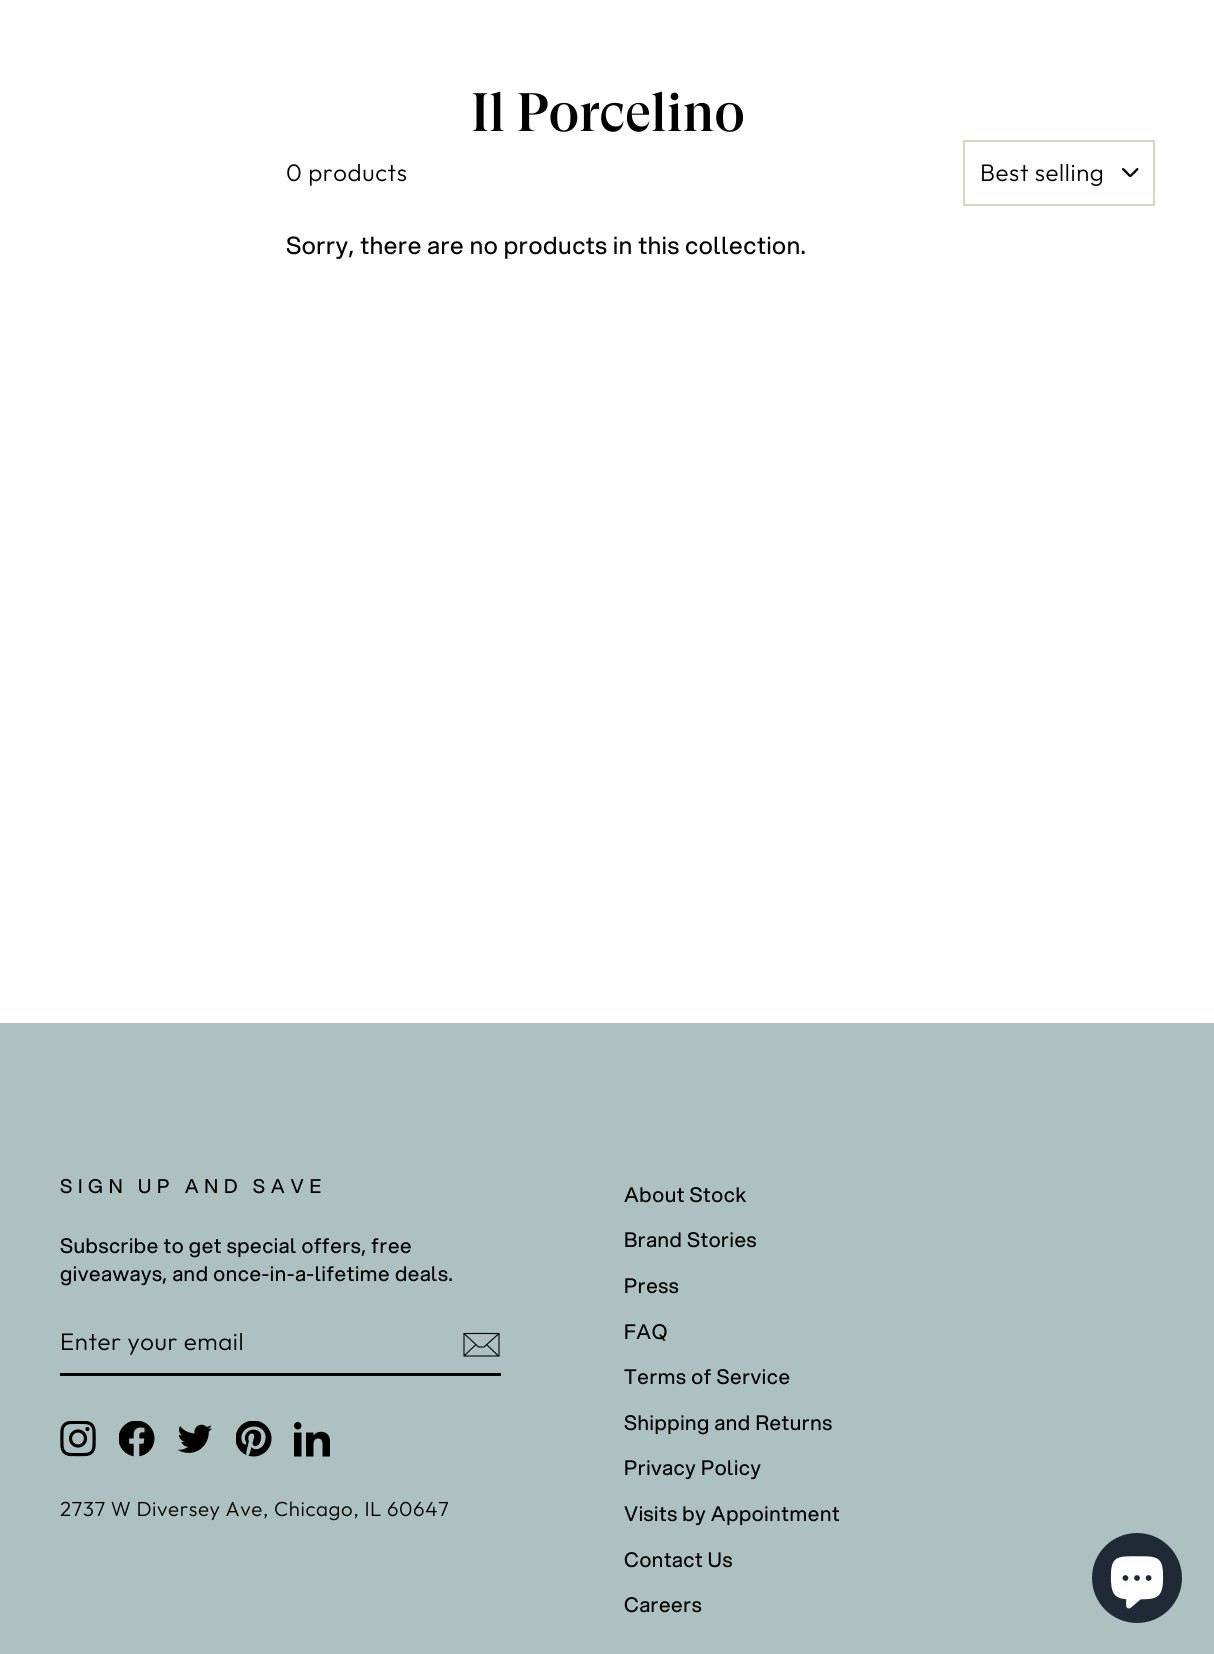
#include <cairo/cairo.h>
#include <math.h>
#include <stddef.h>

typedef struct { double x, y; const char *s; } line_t;
static cairo_t *cr;

static void rgb(unsigned color)
{
	cairo_set_source_rgb(cr, (color >> 16) / 255.0, (color >> 8 & 255) / 255.0, (color & 255) / 255.0);
}

static void tracked(double x, double y, const char *s, double letter, double word)
{
	cairo_move_to(cr, x, y);
	while (*s) {
		char ch[5] = {0};
		int n = 0;
		do ch[n++] = *s++; while ((*s & 0xC0) == 0x80);
		cairo_show_text(cr, ch);
		cairo_rel_move_to(cr, letter + word * (*ch == ' '), 0);
	}
}

static void image(const char *path, double x, double y, double w, double h)
{
	cairo_surface_t *image = cairo_image_surface_create_from_png(path);
	cairo_save(cr);
	cairo_set_source_surface(cr, image, x, y);
	cairo_rectangle(cr, x, y, w, h);
	cairo_fill(cr);
	cairo_restore(cr);
	cairo_surface_destroy(image);
}

int main(void) {
	cairo_surface_t *surface = cairo_image_surface_create(CAIRO_FORMAT_RGB24, 1214, 1654);
	cr = cairo_create(surface);
	cairo_font_options_t *options = cairo_font_options_create();
	cairo_font_options_set_hint_metrics(options, CAIRO_HINT_METRICS_OFF);
	cairo_font_options_set_hint_style(options, CAIRO_HINT_STYLE_NONE);
	cairo_set_font_options(cr, options);
	cairo_set_miter_limit(cr, 4);
	rgb(0xffffff);
	cairo_paint(cr);
	image("img/1.png", 1122, 168, 17, 9);
	cairo_rectangle(cr, 964, 141, 190, 64);
	rgb(0xdbd4c1);
	cairo_stroke(cr);
	rgb(0xadc2c0);
	cairo_rectangle(cr, 0, 1023, 1214, 631);
	cairo_fill(cr);
	rgb(0x000000);
	cairo_rectangle(cr, 60, 1373, 441, 3);
	cairo_fill(cr);
	cairo_new_path(cr);
	cairo_move_to(cr, 499, 1356);
	cairo_line_to(cr, 464, 1356);
	cairo_line_to(cr, 464, 1333.5);
	cairo_line_to(cr, 499, 1333.5);
	cairo_close_path(cr);
	cairo_move_to(cr, 464, 1333.5);
	cairo_line_to(cr, 478.5, 1347);
	cairo_line_to(cr, 484, 1347);
	cairo_line_to(cr, 499, 1333.5);
	cairo_move_to(cr, 476, 1344.5);
	cairo_line_to(cr, 464.5, 1355.5);
	cairo_move_to(cr, 498.5, 1356);
	cairo_line_to(cr, 486.5, 1344.5);
	cairo_set_line_width(cr, 1.1);
	cairo_stroke(cr);
	image("img/2.png", 60, 1421, 36, 36);
	image("img/3.png", 119, 1421, 36, 36);
	image("img/4.png", 177, 1424, 35, 29);
	image("img/5.png", 236, 1421, 36, 36);
	image("img/6.png", 294, 1422, 36, 35);
	rgb(0x202a36);
	cairo_arc(cr, 1137, 1578, 45, 0, 2 * M_PI);
	cairo_fill(cr);
	image("img/7.png", 1110, 1556, 54, 53);
	cairo_select_font_face(cr, "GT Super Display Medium", CAIRO_FONT_SLANT_NORMAL, CAIRO_FONT_WEIGHT_NORMAL);
	cairo_set_font_size(cr, 54);
	rgb(0x000000);
	cairo_move_to(cr, 471, 131);
	cairo_show_text(cr, "Il Porcelino");
	cairo_select_font_face(cr, "Outfit Light", CAIRO_FONT_SLANT_NORMAL, CAIRO_FONT_WEIGHT_NORMAL);
	cairo_set_font_size(cr, 24);
	tracked(286, 181, "0 products", 0.6, 0);
	tracked(980, 181, "Best selling", 0.6, 0);
	cairo_select_font_face(cr, "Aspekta", CAIRO_FONT_SLANT_NORMAL, CAIRO_FONT_WEIGHT_NORMAL);
	tracked(286, 254, "Sorry, there are no products in this collection.", 0.6, 0);
	cairo_set_font_size(cr, 19.25);
	tracked(60, 1193, "SIGN UP AND SAVE", 5.75, 0);
	cairo_set_font_size(cr, 20.4);
	tracked(60, 1253, "Subscribe to get special offers, free", 0.6, 0);
	tracked(60, 1281, "giveaways, and once-in-a-lifetime deals.", 0.6, 0);
	cairo_select_font_face(cr, "Outfit Light", CAIRO_FONT_SLANT_NORMAL, CAIRO_FONT_WEIGHT_NORMAL);
	cairo_set_font_size(cr, 24);
	tracked(60, 1350, "Enter your email", 0.6, 0);
	cairo_set_font_size(cr, 20.4);
	tracked(60, 1516, "2737 W Diversey Ave, Chicago, IL 60647", 0.6, 0);
	cairo_select_font_face(cr, "Aspekta", CAIRO_FONT_SLANT_NORMAL, CAIRO_FONT_WEIGHT_NORMAL);
	{
		static const line_t items[] = {
			{624, 1202, "About Stock"},
			{624, 1247, "Brand Stories"},
			{624, 1293, "Press"},
			{624, 1339, "FAQ"},
			{624, 1384, "Terms of Service"},
			{624, 1430, "Shipping and Returns"},
			{624, 1475, "Privacy Policy"},
			{624, 1521, "Visits by Appointment"},
			{624, 1567, "Contact Us"},
			{624, 1612, "Careers"},
		};
		for (size_t i = 0; i < sizeof items / sizeof *items; i++) {
			tracked(items[i].x, items[i].y, items[i].s, 0.6, 0);
		}
	}
	cairo_surface_write_to_png(surface, "page.png");
	cairo_font_options_destroy(options);
	cairo_destroy(cr);
	cairo_surface_destroy(surface);
	return 0;
}
